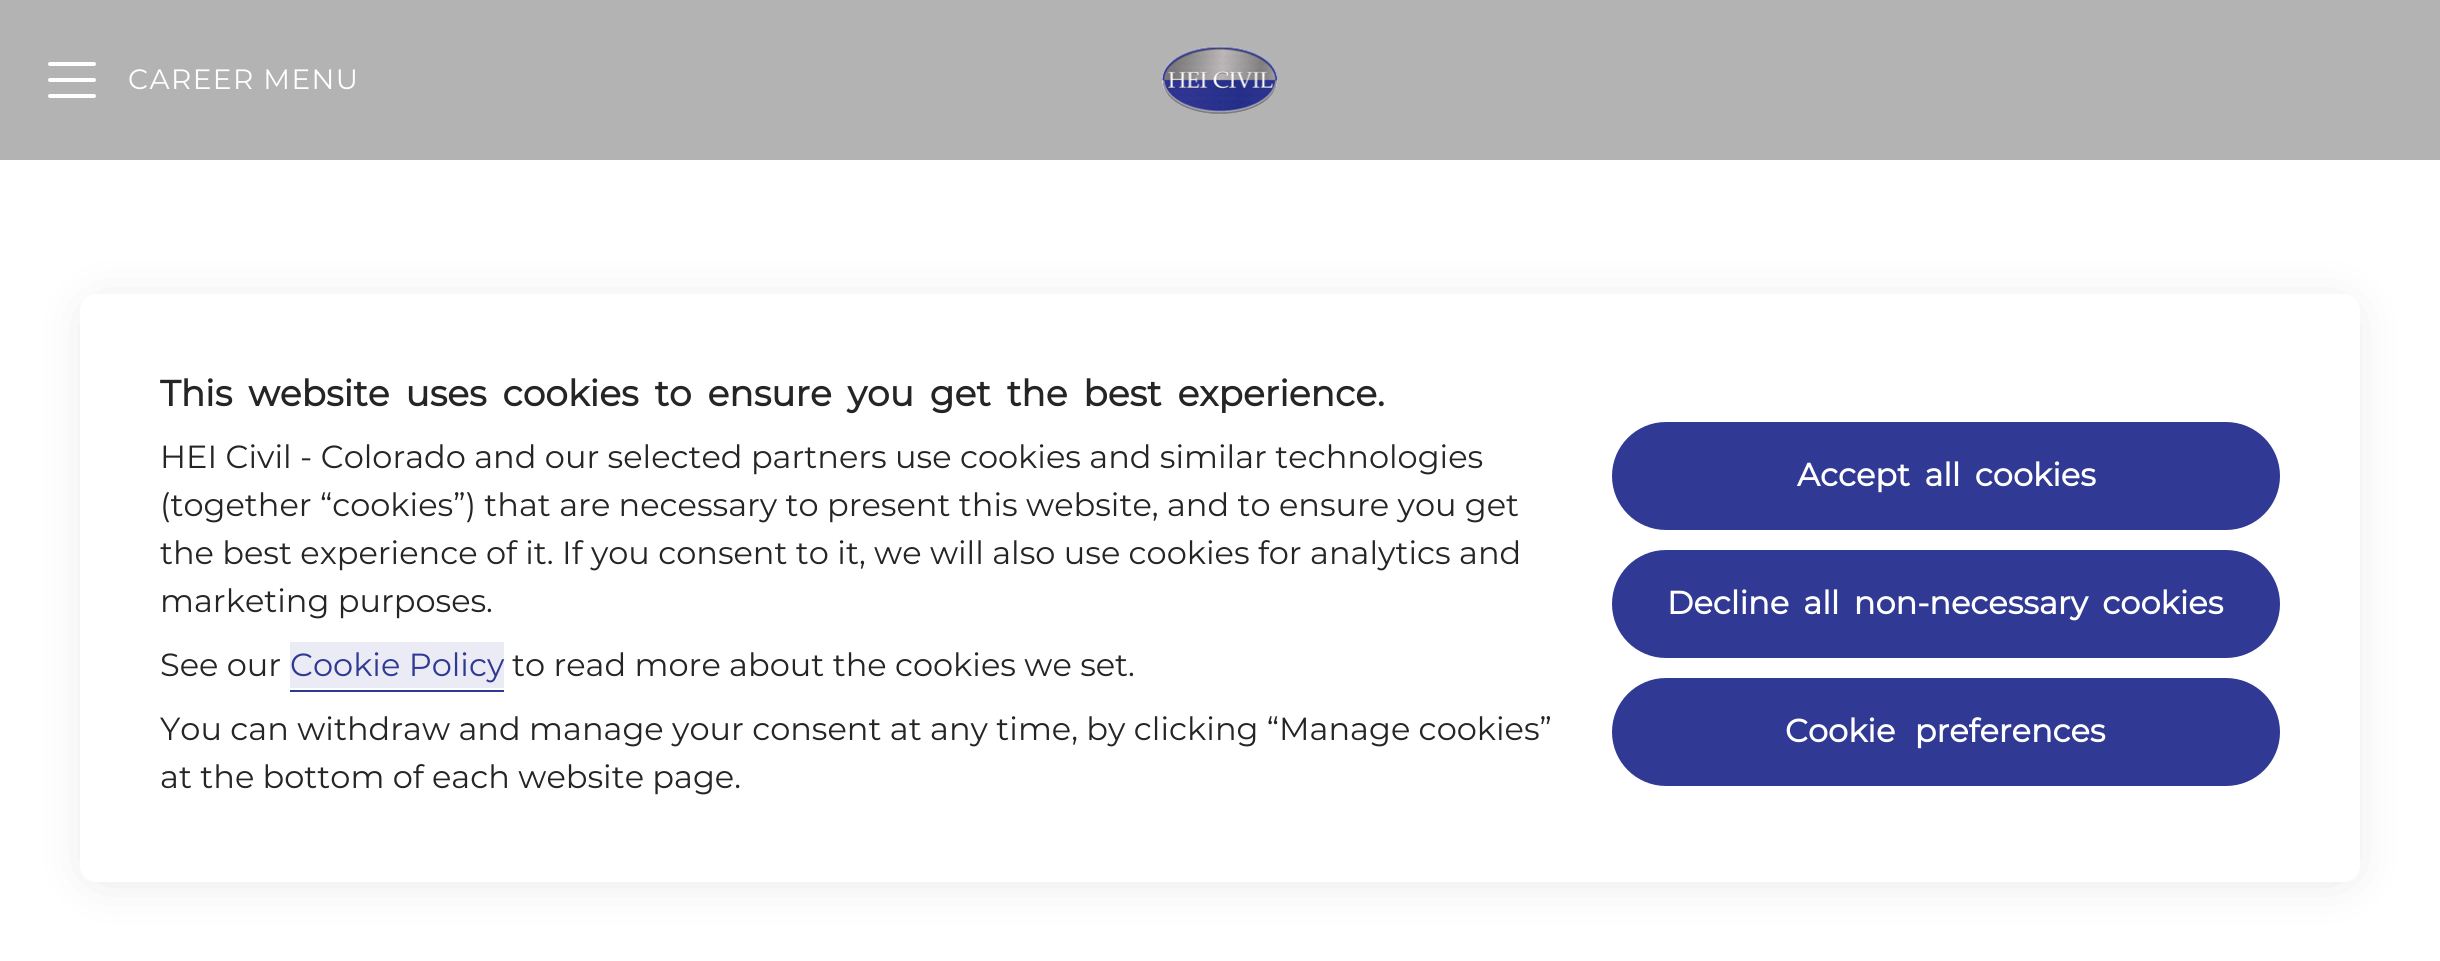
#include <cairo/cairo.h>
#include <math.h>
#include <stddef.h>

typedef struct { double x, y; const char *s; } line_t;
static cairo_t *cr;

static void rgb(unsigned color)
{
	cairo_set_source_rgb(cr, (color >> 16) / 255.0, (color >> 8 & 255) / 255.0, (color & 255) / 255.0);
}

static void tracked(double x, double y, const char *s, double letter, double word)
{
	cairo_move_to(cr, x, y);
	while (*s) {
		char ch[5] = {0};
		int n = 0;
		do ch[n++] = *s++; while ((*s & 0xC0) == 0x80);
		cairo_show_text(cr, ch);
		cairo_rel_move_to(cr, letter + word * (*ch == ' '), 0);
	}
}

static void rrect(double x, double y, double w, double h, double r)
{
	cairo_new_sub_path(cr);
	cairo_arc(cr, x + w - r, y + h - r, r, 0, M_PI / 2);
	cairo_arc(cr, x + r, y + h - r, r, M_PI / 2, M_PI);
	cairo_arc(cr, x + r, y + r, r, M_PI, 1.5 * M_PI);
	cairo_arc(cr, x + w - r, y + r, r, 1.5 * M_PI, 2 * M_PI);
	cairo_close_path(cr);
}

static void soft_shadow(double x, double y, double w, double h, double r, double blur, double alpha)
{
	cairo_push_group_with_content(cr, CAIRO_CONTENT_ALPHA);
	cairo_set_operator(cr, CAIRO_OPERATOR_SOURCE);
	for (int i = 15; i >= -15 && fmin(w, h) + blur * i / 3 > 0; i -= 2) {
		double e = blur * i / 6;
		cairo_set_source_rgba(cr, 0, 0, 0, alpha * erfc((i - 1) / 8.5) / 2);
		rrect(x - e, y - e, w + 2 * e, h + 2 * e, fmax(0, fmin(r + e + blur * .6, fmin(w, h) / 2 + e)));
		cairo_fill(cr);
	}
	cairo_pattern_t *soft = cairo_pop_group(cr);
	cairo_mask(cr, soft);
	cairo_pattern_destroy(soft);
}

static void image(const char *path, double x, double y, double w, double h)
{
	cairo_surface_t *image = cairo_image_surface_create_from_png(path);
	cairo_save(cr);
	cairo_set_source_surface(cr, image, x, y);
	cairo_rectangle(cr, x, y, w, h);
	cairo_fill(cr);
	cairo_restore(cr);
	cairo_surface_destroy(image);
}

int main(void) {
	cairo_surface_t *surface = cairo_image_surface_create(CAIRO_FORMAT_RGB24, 2440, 961);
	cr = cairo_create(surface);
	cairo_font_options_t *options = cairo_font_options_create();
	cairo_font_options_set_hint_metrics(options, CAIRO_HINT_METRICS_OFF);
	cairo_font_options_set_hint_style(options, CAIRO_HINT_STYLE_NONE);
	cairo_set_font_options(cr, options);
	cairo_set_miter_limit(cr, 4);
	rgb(0xffffff);
	cairo_paint(cr);
	rgb(0xb3b3b3);
	cairo_rectangle(cr, 0, 0, 2440, 160);
	cairo_fill(cr);
	rgb(0xffffff);
	rrect(48, 62, 48, 4, 2);
	cairo_fill(cr);
	rrect(48, 78, 48, 4, 2);
	cairo_fill(cr);
	rrect(48, 94, 48, 4, 2);
	cairo_fill(cr);
	image("img/1.png", 1162, 46, 116, 68);
	rgb(0x000000);
	soft_shadow(100, 318, 2240, 548, 0, 27, 0.18);
	rgb(0xffffff);
	rrect(80, 294, 2280, 588, 16);
	cairo_fill(cr);
	rgb(0xeaebf4);
	cairo_rectangle(cr, 290, 642, 214, 46);
	cairo_fill(cr);
	rgb(0x303994);
	cairo_rectangle(cr, 290, 690, 214, 2);
	cairo_fill(cr);
	rrect(1612, 422, 668, 108, 54);
	cairo_fill(cr);
	rrect(1612, 550, 668, 108, 54);
	cairo_fill(cr);
	rrect(1612, 678, 668, 108, 54);
	cairo_fill(cr);
	cairo_select_font_face(cr, "Montserrat", CAIRO_FONT_SLANT_NORMAL, CAIRO_FONT_WEIGHT_NORMAL);
	cairo_set_font_size(cr, 28);
	rgb(0xffffff);
	tracked(128, 89, "CAREER MENU", 1.4, 0);
	cairo_select_font_face(cr, "Montserrat", CAIRO_FONT_SLANT_NORMAL, CAIRO_FONT_WEIGHT_BOLD);
	cairo_set_font_size(cr, 36);
	rgb(0x252525);
	tracked(160, 406, "This website uses cookies to ensure you get the best experience.", 0, 6.5);
	cairo_select_font_face(cr, "Montserrat", CAIRO_FONT_SLANT_NORMAL, CAIRO_FONT_WEIGHT_NORMAL);
	cairo_set_font_size(cr, 32);
	{
		static const line_t items[] = {
			{160, 468, "HEI Civil - Colorado and our selected partners use cookies and similar technologies"},
			{160, 516, "(together “cookies”) that are necessary to present this website, and to ensure you get"},
			{160, 564, "the best experience of it. If you consent to it, we will also use cookies for analytics and"},
			{160, 612, "marketing purposes."},
			{160, 676, "See our"},
		};
		for (size_t i = 0; i < sizeof items / sizeof *items; i++) {
			cairo_move_to(cr, items[i].x, items[i].y);
			cairo_show_text(cr, items[i].s);
		}
	}
	rgb(0x303994);
	cairo_move_to(cr, 290, 676);
	cairo_show_text(cr, "Cookie Policy");
	rgb(0x252525);
	{
		static const line_t items[] = {
			{512, 676, "to read more about the cookies we set."},
			{160, 740, "You can withdraw and manage your consent at any time, by clicking “Manage cookies”"},
			{160, 788, "at the bottom of each website page."},
		};
		for (size_t i = 0; i < sizeof items / sizeof *items; i++) {
			cairo_move_to(cr, items[i].x, items[i].y);
			cairo_show_text(cr, items[i].s);
		}
	}
	cairo_select_font_face(cr, "Montserrat", CAIRO_FONT_SLANT_NORMAL, CAIRO_FONT_WEIGHT_BOLD);
	rgb(0xffffff);
	tracked(1797, 486, "Accept all cookies", 0, 6);
	tracked(1667, 614, "Decline all non-necessary cookies", 0, 6);
	tracked(1785, 742, "Cookie preferences", 0, 11);
	cairo_surface_write_to_png(surface, "page.png");
	cairo_font_options_destroy(options);
	cairo_destroy(cr);
	cairo_surface_destroy(surface);
	return 0;
}
